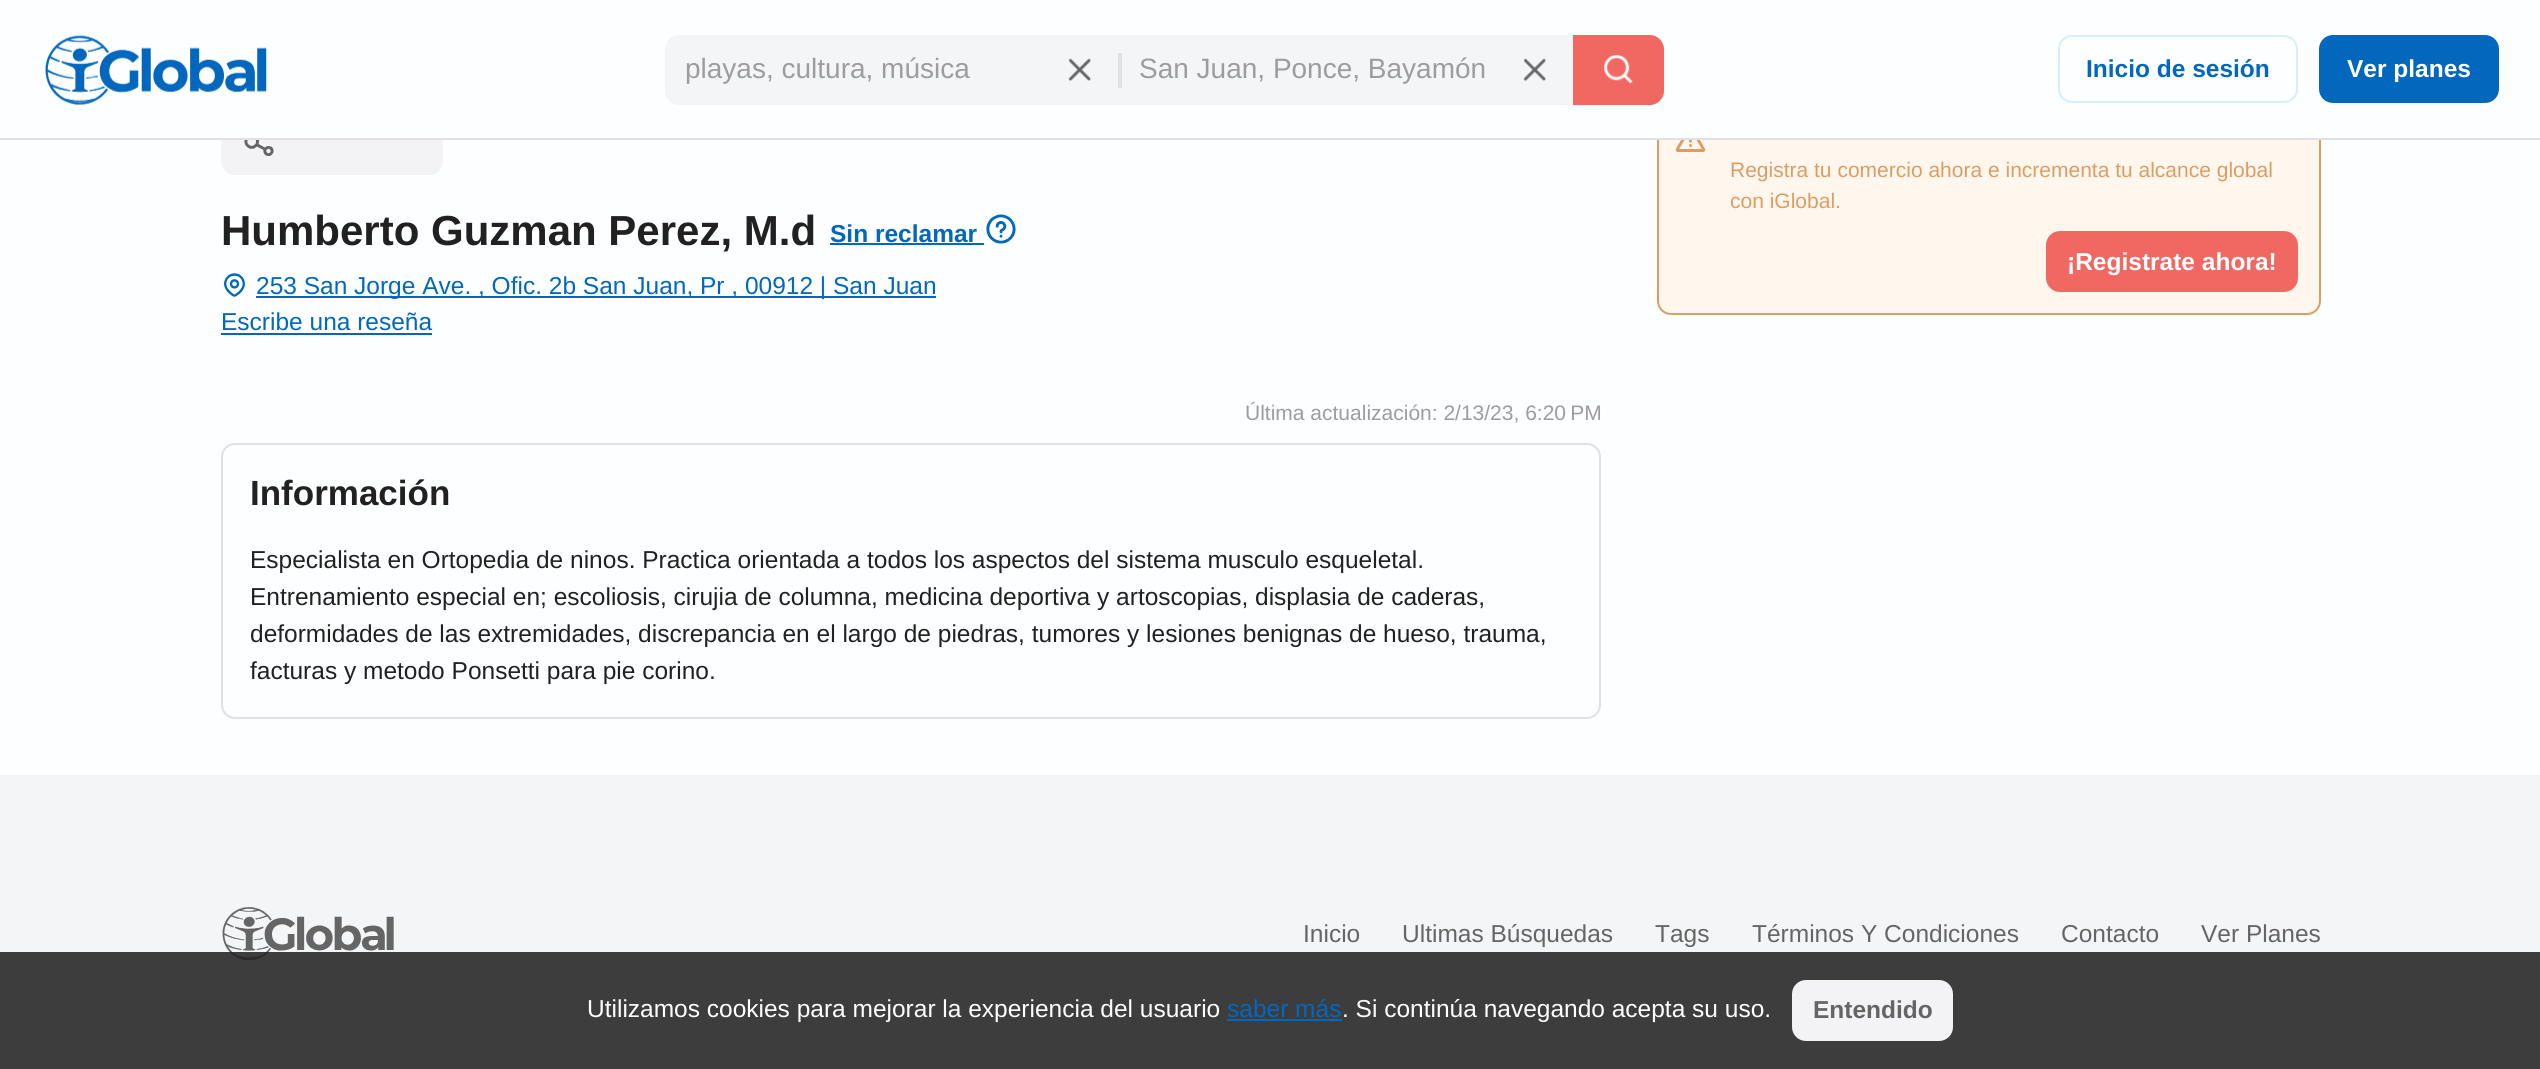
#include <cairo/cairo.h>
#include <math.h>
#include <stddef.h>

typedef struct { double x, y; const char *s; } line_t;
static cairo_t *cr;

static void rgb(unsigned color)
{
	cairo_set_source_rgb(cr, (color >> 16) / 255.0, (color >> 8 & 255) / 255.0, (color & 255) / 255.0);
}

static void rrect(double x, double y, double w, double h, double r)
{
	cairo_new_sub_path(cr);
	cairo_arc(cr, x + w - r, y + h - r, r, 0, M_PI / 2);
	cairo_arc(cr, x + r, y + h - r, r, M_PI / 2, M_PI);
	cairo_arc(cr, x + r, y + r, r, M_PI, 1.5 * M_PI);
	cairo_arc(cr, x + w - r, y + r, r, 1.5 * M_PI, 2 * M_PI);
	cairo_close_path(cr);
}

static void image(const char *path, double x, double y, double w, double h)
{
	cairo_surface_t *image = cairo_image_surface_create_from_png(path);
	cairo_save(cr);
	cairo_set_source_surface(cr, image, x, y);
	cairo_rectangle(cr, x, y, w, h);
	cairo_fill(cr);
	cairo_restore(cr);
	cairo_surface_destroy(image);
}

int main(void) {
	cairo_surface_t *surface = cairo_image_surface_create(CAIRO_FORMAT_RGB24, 2540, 1069);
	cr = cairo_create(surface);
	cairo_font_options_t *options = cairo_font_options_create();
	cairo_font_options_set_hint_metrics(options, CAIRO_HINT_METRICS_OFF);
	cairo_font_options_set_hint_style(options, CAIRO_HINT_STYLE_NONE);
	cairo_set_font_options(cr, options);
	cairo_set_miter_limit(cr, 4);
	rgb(0xfcfeff);
	cairo_paint(cr);
	rgb(0xf3f3f5);
	rrect(221, 107, 222, 68, 14);
	cairo_fill(cr);
	rgb(0xfff6ed);
	rrect(1658, 108, 662, 206, 13);
	cairo_fill_preserve(cr);
	rgb(0xdd9d62);
	cairo_stroke(cr);
	rgb(0xfcfeff);
	cairo_rectangle(cr, 221, 107, 2100, 31);
	cairo_fill(cr);
	rgb(0xe1e1e5);
	cairo_rectangle(cr, 0, 138, 2540, 2);
	cairo_fill(cr);
	image("img/1.png", 45, 35, 222, 70);
	rgb(0xf4f5f6);
	cairo_new_path(cr);
	cairo_move_to(cr, 679, 35);
	cairo_line_to(cr, 1118, 35);
	cairo_line_to(cr, 1118, 105);
	cairo_line_to(cr, 679, 105);
	cairo_curve_to(cr, 671.5, 105, 665, 98.5, 665, 91);
	cairo_line_to(cr, 665, 49);
	cairo_curve_to(cr, 665, 41.5, 671.5, 35, 679, 35);
	cairo_close_path(cr);
	cairo_fill(cr);
	image("img/2.png", 1068, 58, 23, 24);
	cairo_rectangle(cr, 1118, 35, 455, 70);
	cairo_fill(cr);
	rgb(0xe1e1e5);
	cairo_rectangle(cr, 1118, 53, 4, 35);
	cairo_fill(cr);
	image("img/2.png", 1523, 58, 23, 24);
	rgb(0xf16862);
	cairo_new_path(cr);
	cairo_move_to(cr, 1573, 35);
	cairo_line_to(cr, 1650, 35);
	cairo_curve_to(cr, 1657.5, 35, 1664, 41.5, 1664, 49);
	cairo_line_to(cr, 1664, 91);
	cairo_curve_to(cr, 1664, 98.5, 1657.5, 105, 1650, 105);
	cairo_line_to(cr, 1573, 105);
	cairo_close_path(cr);
	cairo_fill(cr);
	image("img/3.png", 1604, 55, 29, 29);
	rrect(2059, 36, 238, 66, 13);
	rgb(0xd8edff);
	cairo_stroke(cr);
	rgb(0x0367bd);
	rrect(2319, 35, 180, 68, 14);
	cairo_fill(cr);
	image("img/4.png", 244, 140, 30, 16);
	cairo_rectangle(cr, 830, 243, 154, 2);
	cairo_fill(cr);
	image("img/5.png", 986, 214, 30, 30);
	image("img/6.png", 224, 273, 21, 24);
	cairo_rectangle(cr, 256, 296, 680, 2);
	cairo_fill(cr);
	cairo_rectangle(cr, 221, 333, 211, 2);
	cairo_fill(cr);
	rrect(222, 444, 1378, 274, 13);
	rgb(0xe1e1e5);
	cairo_stroke(cr);
	image("img/7.png", 1675, 140, 31, 12);
	rgb(0xf16862);
	rrect(2046, 231, 252, 61, 14);
	cairo_fill(cr);
	rgb(0xf4f5f6);
	cairo_rectangle(cr, 0, 775, 2540, 294);
	cairo_fill(cr);
	image("img/8.png", 222, 907, 172, 54);
	cairo_set_source_rgba(cr, 0.133, 0.133, 0.133, 0.87);
	cairo_rectangle(cr, 0, 952, 2540, 117);
	cairo_fill(cr);
	rgb(0x0367bd);
	cairo_rectangle(cr, 1227, 1019, 115, 2);
	cairo_fill(cr);
	rgb(0xf3f3f5);
	rrect(1792, 980, 161, 61, 14);
	cairo_fill(cr);
	cairo_select_font_face(cr, "Liberation Sans", CAIRO_FONT_SLANT_NORMAL, CAIRO_FONT_WEIGHT_NORMAL);
	cairo_set_font_size(cr, 28);
	rgb(0x9d9c9e);
	cairo_move_to(cr, 685, 78);
	cairo_show_text(cr, "playas, cultura, música");
	cairo_move_to(cr, 1139, 78);
	cairo_show_text(cr, "San Juan, Ponce, Bayamón");
	cairo_select_font_face(cr, "Liberation Sans", CAIRO_FONT_SLANT_NORMAL, CAIRO_FONT_WEIGHT_BOLD);
	cairo_set_font_size(cr, 24.5);
	rgb(0x0367bd);
	cairo_move_to(cr, 2086, 77);
	cairo_show_text(cr, "Inicio de sesión");
	rgb(0xffffff);
	cairo_move_to(cr, 2347, 77);
	cairo_show_text(cr, "Ver planes");
	cairo_set_font_size(cr, 42);
	rgb(0x212121);
	cairo_move_to(cr, 221, 245);
	cairo_show_text(cr, "Humberto Guzman Perez, M.d");
	cairo_set_font_size(cr, 24.5);
	rgb(0x0367bd);
	cairo_move_to(cr, 830, 242);
	cairo_show_text(cr, "Sin reclamar");
	cairo_select_font_face(cr, "Liberation Sans", CAIRO_FONT_SLANT_NORMAL, CAIRO_FONT_WEIGHT_NORMAL);
	cairo_move_to(cr, 256, 294);
	cairo_show_text(cr, "253 San Jorge Ave. , Ofic. 2b San Juan, Pr , 00912 | San Juan");
	cairo_move_to(cr, 221, 330);
	cairo_show_text(cr, "Escribe una reseña");
	cairo_set_font_size(cr, 21);
	rgb(0x9d9c9e);
	cairo_move_to(cr, 1245, 420);
	cairo_show_text(cr, "Última actualización: 2/13/23, 6:20 PM");
	cairo_select_font_face(cr, "Liberation Sans", CAIRO_FONT_SLANT_NORMAL, CAIRO_FONT_WEIGHT_BOLD);
	cairo_set_font_size(cr, 35);
	rgb(0x212121);
	cairo_move_to(cr, 250, 505);
	cairo_show_text(cr, "Información");
	cairo_select_font_face(cr, "Liberation Sans", CAIRO_FONT_SLANT_NORMAL, CAIRO_FONT_WEIGHT_NORMAL);
	cairo_set_font_size(cr, 24.5);
	{
		static const line_t items[] = {
			{250, 568, "Especialista en Ortopedia de ninos. Practica orientada a todos los aspectos del sistema musculo esqueletal."},
			{250, 605, "Entrenamiento especial en; escoliosis, cirujia de columna, medicina deportiva y artoscopias, displasia de caderas,"},
			{250, 642, "deformidades de las extremidades, discrepancia en el largo de piedras, tumores y lesiones benignas de hueso, trauma,"},
			{250, 679, "facturas y metodo Ponsetti para pie corino."},
		};
		for (size_t i = 0; i < sizeof items / sizeof *items; i++) {
			cairo_move_to(cr, items[i].x, items[i].y);
			cairo_show_text(cr, items[i].s);
		}
	}
	cairo_set_font_size(cr, 21);
	rgb(0xdd9d62);
	cairo_move_to(cr, 1730, 177);
	cairo_show_text(cr, "Registra tu comercio ahora e incrementa tu alcance global");
	cairo_move_to(cr, 1730, 208);
	cairo_show_text(cr, "con iGlobal.");
	cairo_select_font_face(cr, "Liberation Sans", CAIRO_FONT_SLANT_NORMAL, CAIRO_FONT_WEIGHT_BOLD);
	cairo_set_font_size(cr, 24.5);
	rgb(0xffffff);
	cairo_move_to(cr, 2067, 270);
	cairo_show_text(cr, "¡Registrate ahora!");
	cairo_select_font_face(cr, "Liberation Sans", CAIRO_FONT_SLANT_NORMAL, CAIRO_FONT_WEIGHT_NORMAL);
	rgb(0x656566);
	{
		static const line_t items[] = {
			{1303, 942, "Inicio"},
			{1402, 942, "Ultimas Búsquedas"},
			{1655, 942, "Tags"},
			{1752, 942, "Términos Y Condiciones"},
			{2061, 942, "Contacto"},
			{2201, 942, "Ver Planes"},
		};
		for (size_t i = 0; i < sizeof items / sizeof *items; i++) {
			cairo_move_to(cr, items[i].x, items[i].y);
			cairo_show_text(cr, items[i].s);
		}
	}
	rgb(0xffffff);
	cairo_move_to(cr, 587, 1017);
	cairo_show_text(cr, "Utilizamos cookies para mejorar la experiencia del usuario");
	rgb(0x0367bd);
	cairo_move_to(cr, 1227, 1017);
	cairo_show_text(cr, "saber más");
	rgb(0xffffff);
	cairo_move_to(cr, 1342, 1017);
	cairo_show_text(cr, ". Si continúa navegando acepta su uso.");
	cairo_select_font_face(cr, "Liberation Sans", CAIRO_FONT_SLANT_NORMAL, CAIRO_FONT_WEIGHT_BOLD);
	rgb(0x656566);
	cairo_move_to(cr, 1813, 1018);
	cairo_show_text(cr, "Entendido");
	cairo_surface_write_to_png(surface, "page.png");
	cairo_font_options_destroy(options);
	cairo_destroy(cr);
	cairo_surface_destroy(surface);
	return 0;
}
